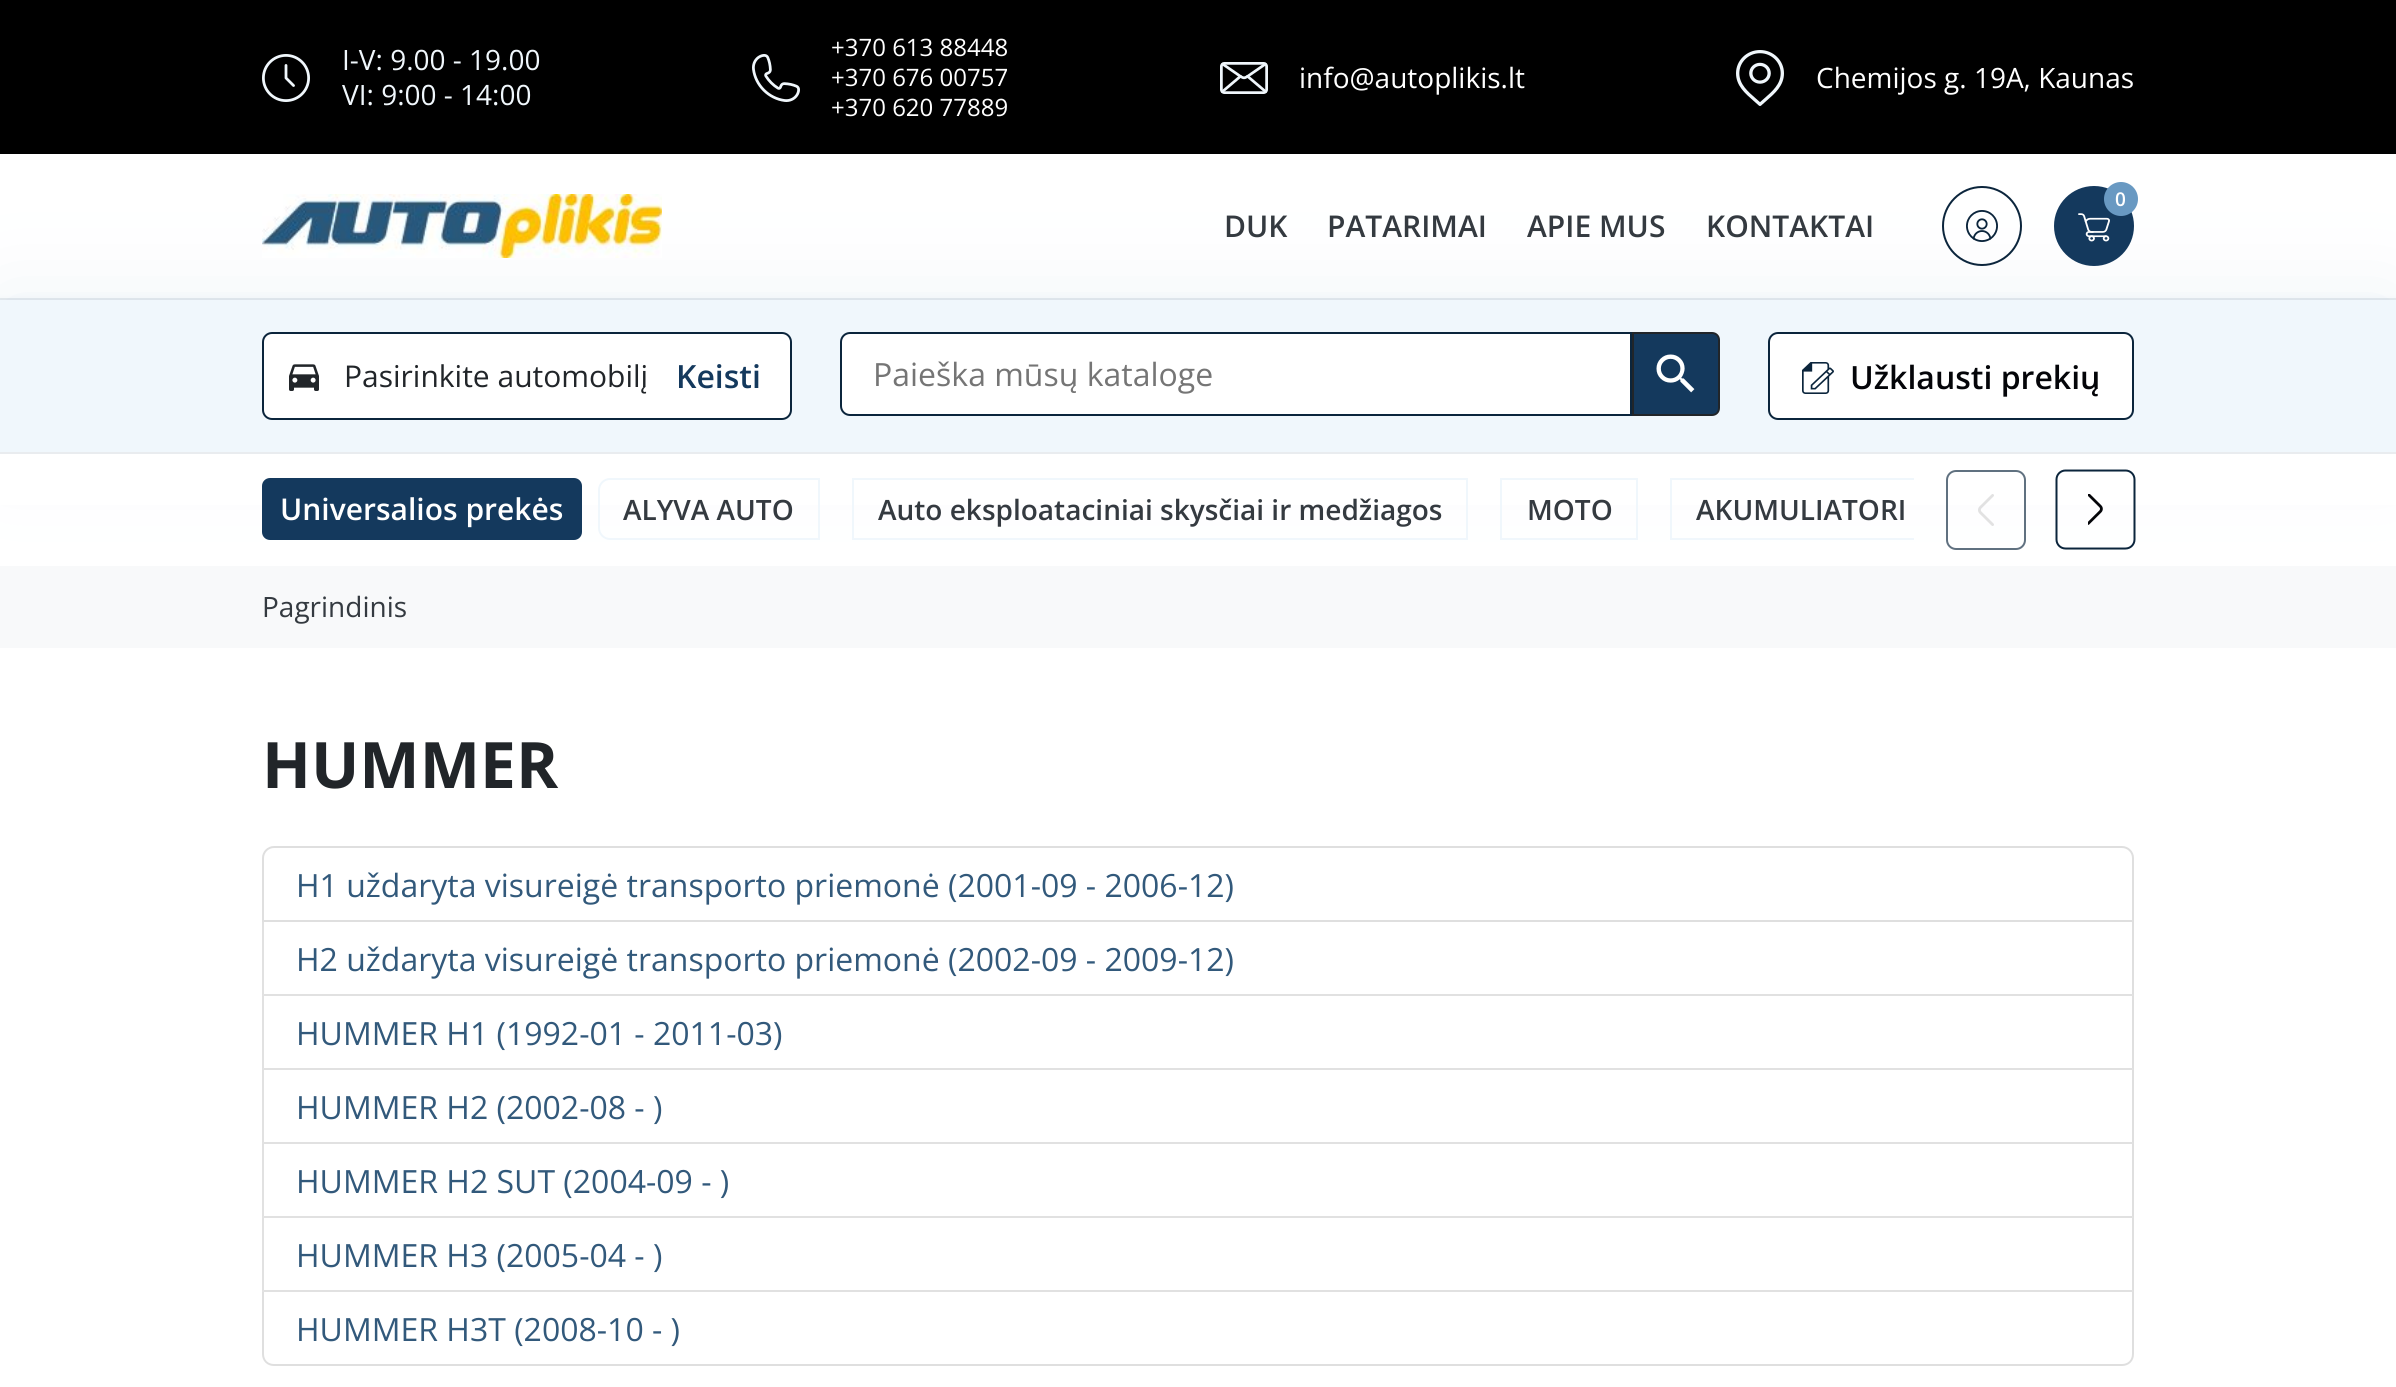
#include <cairo/cairo.h>
#include <math.h>
#include <stddef.h>

typedef struct { double x, y; const char *s; } line_t;
static cairo_t *cr;

static void rgb(unsigned color)
{
	cairo_set_source_rgb(cr, (color >> 16) / 255.0, (color >> 8 & 255) / 255.0, (color & 255) / 255.0);
}

static void rrect(double x, double y, double w, double h, double r)
{
	cairo_new_sub_path(cr);
	cairo_arc(cr, x + w - r, y + h - r, r, 0, M_PI / 2);
	cairo_arc(cr, x + r, y + h - r, r, M_PI / 2, M_PI);
	cairo_arc(cr, x + r, y + r, r, M_PI, 1.5 * M_PI);
	cairo_arc(cr, x + w - r, y + r, r, 1.5 * M_PI, 2 * M_PI);
	cairo_close_path(cr);
}

static void soft_shadow(double x, double y, double w, double h, double r, double blur, double alpha)
{
	cairo_push_group_with_content(cr, CAIRO_CONTENT_ALPHA);
	cairo_set_operator(cr, CAIRO_OPERATOR_SOURCE);
	for (int i = 15; i >= -15 && fmin(w, h) + blur * i / 3 > 0; i -= 2) {
		double e = blur * i / 6;
		cairo_set_source_rgba(cr, 0, 0, 0, alpha * erfc((i - 1) / 8.5) / 2);
		rrect(x - e, y - e, w + 2 * e, h + 2 * e, fmax(0, fmin(r + e + blur * .6, fmin(w, h) / 2 + e)));
		cairo_fill(cr);
	}
	cairo_pattern_t *soft = cairo_pop_group(cr);
	cairo_mask(cr, soft);
	cairo_pattern_destroy(soft);
}

static void image(const char *path, double x, double y, double w, double h)
{
	cairo_surface_t *image = cairo_image_surface_create_from_png(path);
	cairo_save(cr);
	cairo_set_source_surface(cr, image, x, y);
	cairo_rectangle(cr, x, y, w, h);
	cairo_fill(cr);
	cairo_restore(cr);
	cairo_surface_destroy(image);
}

int main(void) {
	cairo_surface_t *surface = cairo_image_surface_create(CAIRO_FORMAT_RGB24, 2396, 1387);
	cr = cairo_create(surface);
	cairo_font_options_t *options = cairo_font_options_create();
	cairo_font_options_set_hint_metrics(options, CAIRO_HINT_METRICS_OFF);
	cairo_font_options_set_hint_style(options, CAIRO_HINT_STYLE_NONE);
	cairo_set_font_options(cr, options);
	cairo_set_miter_limit(cr, 4);
	rgb(0xffffff);
	cairo_paint(cr);
	rgb(0x000000);
	cairo_rectangle(cr, 0, 0, 2396, 154);
	cairo_fill(cr);
	image("img/1.png", 262, 54, 48, 48);
	image("img/2.png", 752, 54, 48, 48);
	image("img/3.png", 1220, 62, 48, 32);
	image("img/4.png", 1736, 50, 48, 56);
	rgb(0xe9ecef);
	cairo_rectangle(cr, 0, 298, 2396, 2);
	cairo_fill(cr);
	rgb(0x6999c2);
	soft_shadow(0, 300, 2396, 154, 0, 48, 0.12);
	image("img/5.png", 262, 194, 400, 64);
	cairo_arc(cr, 1982, 226, 39, 0, 2 * M_PI);
	rgb(0x0b253c);
	cairo_stroke(cr);
	image("img/6.png", 1966, 210, 32, 32);
	rgb(0x14395d);
	cairo_arc(cr, 2094, 226, 39, 0, 2 * M_PI);
	cairo_fill_preserve(cr);
	cairo_stroke(cr);
	image("img/7.png", 2078, 213, 32, 29);
	rgb(0x6999c2);
	cairo_arc(cr, 2121, 199, 17, 0, 2 * M_PI);
	cairo_fill(cr);
	rgb(0x6999c2);
	soft_shadow(0, 300, 2396, 154, 0, 4, 0.08);
	rgb(0xf0f7fc);
	cairo_rectangle(cr, 0, 300, 2396, 152);
	cairo_fill(cr);
	rgb(0xe9ecef);
	cairo_rectangle(cr, 0, 452, 2396, 2);
	cairo_fill(cr);
	rgb(0xffffff);
	rrect(263, 333, 528, 86, 9);
	cairo_fill_preserve(cr);
	rgb(0x0b253c);
	cairo_stroke(cr);
	image("img/8.png", 289, 364, 30, 27);
	rgb(0xffffff);
	cairo_new_path(cr);
	cairo_move_to(cr, 648, 336);
	cairo_line_to(cr, 782, 336);
	cairo_curve_to(cr, 786.5, 336, 790, 339.5, 790, 344);
	cairo_line_to(cr, 790, 408);
	cairo_curve_to(cr, 790, 412.5, 786.5, 416, 782, 416);
	cairo_line_to(cr, 648, 416);
	cairo_close_path(cr);
	cairo_fill(cr);
	cairo_new_path(cr);
	cairo_move_to(cr, 850, 333);
	cairo_line_to(cr, 1631, 333);
	cairo_line_to(cr, 1631, 415);
	cairo_line_to(cr, 850, 415);
	cairo_curve_to(cr, 845, 415, 841, 411, 841, 406);
	cairo_line_to(cr, 841, 342);
	cairo_curve_to(cr, 841, 337, 845, 333, 850, 333);
	cairo_close_path(cr);
	cairo_fill_preserve(cr);
	rgb(0x0b253c);
	cairo_stroke(cr);
	rgb(0x14395d);
	cairo_new_path(cr);
	cairo_move_to(cr, 1633, 333);
	cairo_line_to(cr, 1712, 333);
	cairo_curve_to(cr, 1716, 333, 1719, 336, 1719, 340);
	cairo_line_to(cr, 1719, 408);
	cairo_curve_to(cr, 1719, 412, 1716, 415, 1712, 415);
	cairo_line_to(cr, 1633, 415);
	cairo_close_path(cr);
	cairo_fill_preserve(cr);
	rgb(0x212529);
	cairo_stroke(cr);
	image("img/9.png", 1656, 354, 39, 39);
	rgb(0xffffff);
	rrect(1769, 333, 364, 86, 9);
	cairo_fill_preserve(cr);
	rgb(0x0b253c);
	cairo_stroke(cr);
	image("img/10.png", 1802, 362, 32, 32);
	rgb(0xffffff);
	cairo_rectangle(cr, 0, 454, 2396, 51);
	cairo_fill(cr);
	rgb(0x14395d);
	rrect(263, 479, 318, 60, 7);
	cairo_fill_preserve(cr);
	cairo_stroke(cr);
	cairo_new_path(cr);
	cairo_move_to(cr, 610, 479);
	cairo_line_to(cr, 819, 479);
	cairo_line_to(cr, 819, 539);
	cairo_line_to(cr, 610, 539);
	cairo_curve_to(cr, 604, 539, 599, 534, 599, 528);
	cairo_line_to(cr, 599, 490);
	cairo_curve_to(cr, 599, 484, 604, 479, 610, 479);
	cairo_close_path(cr);
	rgb(0xf0f7fc);
	cairo_stroke(cr);
	cairo_rectangle(cr, 853, 479, 614, 60);
	cairo_stroke(cr);
	cairo_rectangle(cr, 1501, 479, 136, 60);
	cairo_stroke(cr);
	cairo_save(cr);
	cairo_rectangle(cr, 598, 478, 1316, 62);
	cairo_clip(cr);
	cairo_rectangle(cr, 1671, 479, 288, 60);
	cairo_stroke(cr);
	cairo_restore(cr);
	rrect(1947, 471, 78, 78, 9);
	rgb(0x607180);
	cairo_stroke(cr);
	image("img/11.png", 1978, 494, 16, 32);
	cairo_new_path(cr);
	cairo_move_to(cr, 2125.5, 548.5);
	cairo_line_to(cr, 2065.5, 548.5);
	cairo_curve_to(cr, 2060.5, 548.5, 2056.5, 544.5, 2056.5, 539.5);
	cairo_line_to(cr, 2056.5, 479.5);
	cairo_curve_to(cr, 2056.5, 474.5, 2060.5, 470.5, 2065.5, 470.5);
	cairo_line_to(cr, 2125.5, 470.5);
	cairo_curve_to(cr, 2130.5, 470.5, 2134.5, 474.5, 2134.5, 479.5);
	cairo_line_to(cr, 2134.5, 539.5);
	cairo_curve_to(cr, 2134.5, 544.5, 2130.5, 548.5, 2125.5, 548.5);
	cairo_close_path(cr);
	rgb(0x0b253c);
	cairo_stroke(cr);
	image("img/12.png", 2088, 494, 15, 31);
	rgb(0xf8f9fa);
	cairo_rectangle(cr, 0, 566, 2396, 82);
	cairo_fill(cr);
	cairo_new_path(cr);
	cairo_move_to(cr, 274, 847);
	cairo_line_to(cr, 2122, 847);
	cairo_curve_to(cr, 2128, 847, 2133, 852, 2133, 858);
	cairo_line_to(cr, 2133, 921);
	cairo_line_to(cr, 263, 921);
	cairo_line_to(cr, 263, 858);
	cairo_curve_to(cr, 263, 852, 268, 847, 274, 847);
	cairo_close_path(cr);
	rgb(0xdfdfdf);
	cairo_stroke(cr);
	cairo_new_path(cr);
	cairo_move_to(cr, 2134, 922);
	cairo_line_to(cr, 2134, 996);
	cairo_line_to(cr, 2132, 994);
	cairo_line_to(cr, 2132, 922);
	cairo_close_path(cr);
	cairo_fill(cr);
	cairo_set_source_rgba(cr, 0, 0, 0, 0.12);
	cairo_new_path(cr);
	cairo_move_to(cr, 2134, 996);
	cairo_line_to(cr, 262, 996);
	cairo_line_to(cr, 264, 994);
	cairo_line_to(cr, 2132, 994);
	cairo_close_path(cr);
	cairo_fill(cr);
	cairo_new_path(cr);
	cairo_move_to(cr, 262, 996);
	cairo_line_to(cr, 262, 922);
	cairo_line_to(cr, 264, 922);
	cairo_line_to(cr, 264, 994);
	cairo_close_path(cr);
	cairo_fill(cr);
	rgb(0xdfdfdf);
	cairo_new_path(cr);
	cairo_move_to(cr, 2134, 996);
	cairo_line_to(cr, 2134, 1070);
	cairo_line_to(cr, 2132, 1068);
	cairo_line_to(cr, 2132, 996);
	cairo_close_path(cr);
	cairo_fill(cr);
	cairo_set_source_rgba(cr, 0, 0, 0, 0.12);
	cairo_new_path(cr);
	cairo_move_to(cr, 2134, 1070);
	cairo_line_to(cr, 262, 1070);
	cairo_line_to(cr, 264, 1068);
	cairo_line_to(cr, 2132, 1068);
	cairo_close_path(cr);
	cairo_fill(cr);
	cairo_new_path(cr);
	cairo_move_to(cr, 262, 1070);
	cairo_line_to(cr, 262, 996);
	cairo_line_to(cr, 264, 996);
	cairo_line_to(cr, 264, 1068);
	cairo_close_path(cr);
	cairo_fill(cr);
	rgb(0xdfdfdf);
	cairo_new_path(cr);
	cairo_move_to(cr, 2134, 1070);
	cairo_line_to(cr, 2134, 1144);
	cairo_line_to(cr, 2132, 1142);
	cairo_line_to(cr, 2132, 1070);
	cairo_close_path(cr);
	cairo_fill(cr);
	cairo_set_source_rgba(cr, 0, 0, 0, 0.12);
	cairo_new_path(cr);
	cairo_move_to(cr, 2134, 1144);
	cairo_line_to(cr, 262, 1144);
	cairo_line_to(cr, 264, 1142);
	cairo_line_to(cr, 2132, 1142);
	cairo_close_path(cr);
	cairo_fill(cr);
	cairo_new_path(cr);
	cairo_move_to(cr, 262, 1144);
	cairo_line_to(cr, 262, 1070);
	cairo_line_to(cr, 264, 1070);
	cairo_line_to(cr, 264, 1142);
	cairo_close_path(cr);
	cairo_fill(cr);
	rgb(0xdfdfdf);
	cairo_new_path(cr);
	cairo_move_to(cr, 2134, 1144);
	cairo_line_to(cr, 2134, 1218);
	cairo_line_to(cr, 2132, 1216);
	cairo_line_to(cr, 2132, 1144);
	cairo_close_path(cr);
	cairo_fill(cr);
	cairo_set_source_rgba(cr, 0, 0, 0, 0.12);
	cairo_new_path(cr);
	cairo_move_to(cr, 2134, 1218);
	cairo_line_to(cr, 262, 1218);
	cairo_line_to(cr, 264, 1216);
	cairo_line_to(cr, 2132, 1216);
	cairo_close_path(cr);
	cairo_fill(cr);
	cairo_new_path(cr);
	cairo_move_to(cr, 262, 1218);
	cairo_line_to(cr, 262, 1144);
	cairo_line_to(cr, 264, 1144);
	cairo_line_to(cr, 264, 1216);
	cairo_close_path(cr);
	cairo_fill(cr);
	rgb(0xdfdfdf);
	cairo_new_path(cr);
	cairo_move_to(cr, 2134, 1218);
	cairo_line_to(cr, 2134, 1292);
	cairo_line_to(cr, 2132, 1290);
	cairo_line_to(cr, 2132, 1218);
	cairo_close_path(cr);
	cairo_fill(cr);
	cairo_set_source_rgba(cr, 0, 0, 0, 0.12);
	cairo_new_path(cr);
	cairo_move_to(cr, 2134, 1292);
	cairo_line_to(cr, 262, 1292);
	cairo_line_to(cr, 264, 1290);
	cairo_line_to(cr, 2132, 1290);
	cairo_close_path(cr);
	cairo_fill(cr);
	cairo_new_path(cr);
	cairo_move_to(cr, 262, 1292);
	cairo_line_to(cr, 262, 1218);
	cairo_line_to(cr, 264, 1218);
	cairo_line_to(cr, 264, 1290);
	cairo_close_path(cr);
	cairo_fill(cr);
	rgb(0xdfdfdf);
	cairo_set_fill_rule(cr, CAIRO_FILL_RULE_EVEN_ODD);
	cairo_new_path(cr);
	cairo_move_to(cr, 262, 1292);
	cairo_line_to(cr, 2134, 1292);
	cairo_line_to(cr, 2134, 1354);
	cairo_curve_to(cr, 2134, 1361, 2129, 1366, 2122, 1366);
	cairo_line_to(cr, 274, 1366);
	cairo_curve_to(cr, 267, 1366, 262, 1361, 262, 1354);
	cairo_close_path(cr);
	cairo_move_to(cr, 264, 1292);
	cairo_line_to(cr, 2132, 1292);
	cairo_line_to(cr, 2132, 1354);
	cairo_curve_to(cr, 2132, 1360, 2128, 1364, 2122, 1364);
	cairo_line_to(cr, 274, 1364);
	cairo_curve_to(cr, 268, 1364, 264, 1360, 264, 1354);
	cairo_close_path(cr);
	cairo_fill(cr);
	cairo_select_font_face(cr, "Open Sans", CAIRO_FONT_SLANT_NORMAL, CAIRO_FONT_WEIGHT_NORMAL);
	cairo_set_font_size(cr, 28);
	rgb(0xf0f7fc);
	cairo_move_to(cr, 342, 70);
	cairo_show_text(cr, "I-V: 9.00 - 19.00");
	cairo_move_to(cr, 342, 105);
	cairo_show_text(cr, "VI: 9:00 - 14:00");
	cairo_set_font_size(cr, 24);
	rgb(0xffffff);
	{
		static const line_t items[] = {
			{831, 56, "+370 613 88448"},
			{831, 86, "+370 676 00757"},
			{831, 116, "+370 620 77889"},
		};
		for (size_t i = 0; i < sizeof items / sizeof *items; i++) {
			cairo_move_to(cr, items[i].x, items[i].y);
			cairo_show_text(cr, items[i].s);
		}
	}
	cairo_set_font_size(cr, 28);
	cairo_move_to(cr, 1299, 88);
	cairo_show_text(cr, "info@autoplikis.lt");
	cairo_move_to(cr, 1816, 88);
	cairo_show_text(cr, "Chemijos g. 19A, Kaunas");
	cairo_select_font_face(cr, "Open Sans SemiBold", CAIRO_FONT_SLANT_NORMAL, CAIRO_FONT_WEIGHT_NORMAL);
	cairo_set_font_size(cr, 30);
	rgb(0x343a40);
	{
		static const line_t items[] = {
			{1224, 237, "DUK"},
			{1327, 237, "PATARIMAI"},
			{1527, 237, "APIE MUS"},
			{1706, 237, "KONTAKTAI"},
		};
		for (size_t i = 0; i < sizeof items / sizeof *items; i++) {
			cairo_move_to(cr, items[i].x, items[i].y);
			cairo_show_text(cr, items[i].s);
		}
	}
	cairo_set_font_size(cr, 19);
	rgb(0xffffff);
	cairo_move_to(cr, 2115, 206);
	cairo_show_text(cr, "0");
	cairo_select_font_face(cr, "Open Sans", CAIRO_FONT_SLANT_NORMAL, CAIRO_FONT_WEIGHT_NORMAL);
	cairo_set_font_size(cr, 30);
	rgb(0x212529);
	cairo_move_to(cr, 344, 387);
	cairo_show_text(cr, "Pasirinkite automobilį");
	cairo_select_font_face(cr, "Open Sans SemiBold", CAIRO_FONT_SLANT_NORMAL, CAIRO_FONT_WEIGHT_NORMAL);
	cairo_set_font_size(cr, 32);
	rgb(0x14395d);
	cairo_move_to(cr, 676, 388);
	cairo_show_text(cr, "Keisti");
	cairo_select_font_face(cr, "Open Sans", CAIRO_FONT_SLANT_NORMAL, CAIRO_FONT_WEIGHT_NORMAL);
	rgb(0x757575);
	cairo_move_to(cr, 873, 386);
	cairo_show_text(cr, "Paieška mūsų kataloge");
	cairo_select_font_face(cr, "Open Sans SemiBold", CAIRO_FONT_SLANT_NORMAL, CAIRO_FONT_WEIGHT_NORMAL);
	rgb(0x040509);
	cairo_move_to(cr, 1850, 389);
	cairo_show_text(cr, "Užklausti prekių");
	cairo_set_font_size(cr, 30);
	rgb(0xffffff);
	cairo_move_to(cr, 280, 520);
	cairo_show_text(cr, "Universalios prekės");
	cairo_set_font_size(cr, 28);
	rgb(0x343a40);
	{
		static const line_t items[] = {
			{623, 520, "ALYVA AUTO"},
			{878, 520, "Auto eksploataciniai skysčiai ir medžiagos"},
			{1527, 520, "MOTO"},
			{1696, 520, "AKUMULIATORI"},
		};
		for (size_t i = 0; i < sizeof items / sizeof *items; i++) {
			cairo_move_to(cr, items[i].x, items[i].y);
			cairo_show_text(cr, items[i].s);
		}
	}
	cairo_select_font_face(cr, "Open Sans", CAIRO_FONT_SLANT_NORMAL, CAIRO_FONT_WEIGHT_NORMAL);
	cairo_move_to(cr, 262, 617);
	cairo_show_text(cr, "Pagrindinis");
	cairo_select_font_face(cr, "Open Sans", CAIRO_FONT_SLANT_NORMAL, CAIRO_FONT_WEIGHT_BOLD);
	cairo_set_font_size(cr, 64);
	rgb(0x212529);
	cairo_move_to(cr, 262, 788);
	cairo_show_text(cr, "HUMMER");
	cairo_select_font_face(cr, "Open Sans", CAIRO_FONT_SLANT_NORMAL, CAIRO_FONT_WEIGHT_NORMAL);
	cairo_set_font_size(cr, 32);
	rgb(0x32597b);
	{
		static const line_t items[] = {
			{296, 897, "H1 uždaryta visureigė transporto priemonė (2001-09 - 2006-12)"},
			{296, 971, "H2 uždaryta visureigė transporto priemonė (2002-09 - 2009-12)"},
			{296, 1045, "HUMMER H1 (1992-01 - 2011-03)"},
			{296, 1119, "HUMMER H2 (2002-08 - )"},
			{296, 1193, "HUMMER H2 SUT (2004-09 - )"},
			{296, 1267, "HUMMER H3 (2005-04 - )"},
			{296, 1341, "HUMMER H3T (2008-10 - )"},
		};
		for (size_t i = 0; i < sizeof items / sizeof *items; i++) {
			cairo_move_to(cr, items[i].x, items[i].y);
			cairo_show_text(cr, items[i].s);
		}
	}
	cairo_surface_write_to_png(surface, "page.png");
	cairo_font_options_destroy(options);
	cairo_destroy(cr);
	cairo_surface_destroy(surface);
	return 0;
}
